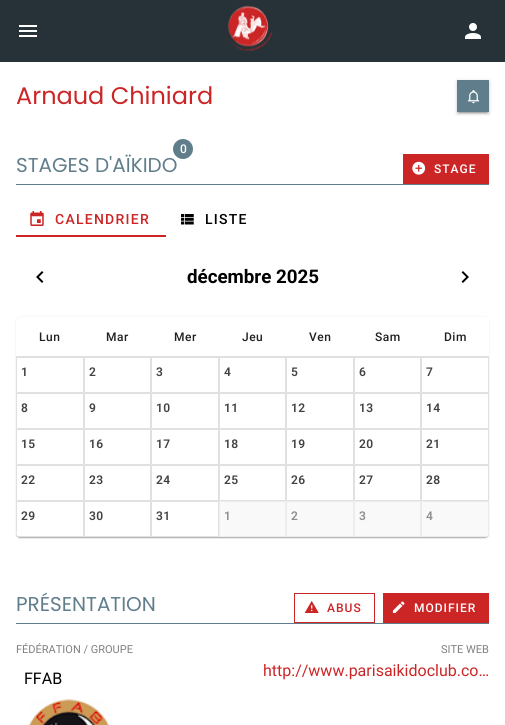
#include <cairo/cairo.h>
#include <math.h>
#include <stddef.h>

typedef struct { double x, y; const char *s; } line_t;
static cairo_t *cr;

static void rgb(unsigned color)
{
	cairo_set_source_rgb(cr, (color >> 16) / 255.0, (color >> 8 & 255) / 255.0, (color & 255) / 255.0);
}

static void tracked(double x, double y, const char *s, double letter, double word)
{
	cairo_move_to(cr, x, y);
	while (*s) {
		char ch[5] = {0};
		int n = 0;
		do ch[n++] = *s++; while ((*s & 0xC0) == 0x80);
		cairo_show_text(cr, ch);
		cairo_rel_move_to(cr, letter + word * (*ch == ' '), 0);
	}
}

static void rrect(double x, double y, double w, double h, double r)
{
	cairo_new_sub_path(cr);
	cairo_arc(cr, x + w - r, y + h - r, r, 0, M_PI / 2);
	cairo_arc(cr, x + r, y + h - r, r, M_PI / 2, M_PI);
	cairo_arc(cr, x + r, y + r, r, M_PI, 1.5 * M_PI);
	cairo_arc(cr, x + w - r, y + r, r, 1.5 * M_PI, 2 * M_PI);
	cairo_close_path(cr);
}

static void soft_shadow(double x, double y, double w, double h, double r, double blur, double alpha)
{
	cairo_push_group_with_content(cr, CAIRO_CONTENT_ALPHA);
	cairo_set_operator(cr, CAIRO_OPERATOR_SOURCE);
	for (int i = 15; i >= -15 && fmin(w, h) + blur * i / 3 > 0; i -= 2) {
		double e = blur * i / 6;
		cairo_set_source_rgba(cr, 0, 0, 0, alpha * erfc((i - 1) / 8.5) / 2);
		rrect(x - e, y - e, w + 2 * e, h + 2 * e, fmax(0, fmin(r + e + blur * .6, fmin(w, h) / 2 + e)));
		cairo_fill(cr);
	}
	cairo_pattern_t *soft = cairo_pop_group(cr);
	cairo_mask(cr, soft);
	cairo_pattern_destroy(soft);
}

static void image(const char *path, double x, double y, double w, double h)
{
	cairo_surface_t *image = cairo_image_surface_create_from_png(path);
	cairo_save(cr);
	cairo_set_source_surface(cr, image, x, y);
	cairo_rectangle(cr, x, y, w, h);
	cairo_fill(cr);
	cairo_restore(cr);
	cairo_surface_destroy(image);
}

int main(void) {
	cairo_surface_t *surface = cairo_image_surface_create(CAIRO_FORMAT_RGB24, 505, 725);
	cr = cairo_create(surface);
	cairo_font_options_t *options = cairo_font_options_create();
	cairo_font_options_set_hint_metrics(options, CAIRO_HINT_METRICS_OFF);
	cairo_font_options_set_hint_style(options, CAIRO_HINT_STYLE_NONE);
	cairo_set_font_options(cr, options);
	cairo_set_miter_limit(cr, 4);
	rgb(0xffffff);
	cairo_paint(cr);
	rgb(0x263238);
	cairo_rectangle(cr, 0, 0, 505, 62);
	cairo_fill(cr);
	image("img/1.png", 19, 25, 18, 12);
	image("img/2.png", 224, 5, 49, 46);
	image("img/3.png", 465, 23, 16, 16);
	rgb(0x000000);
	soft_shadow(457, 81, 32, 32, 0, 2.5, 0.12);
	soft_shadow(457, 82, 32, 32, 0, 1, 0.14);
	soft_shadow(459, 85, 28, 28, 0, 0.5, 0.2);
	rgb(0x607d8b);
	cairo_rectangle(cr, 457, 80, 32, 32);
	cairo_fill(cr);
	image("img/4.png", 467, 90, 13, 14);
	cairo_rectangle(cr, 16, 184, 473, 1);
	cairo_fill(cr);
	cairo_arc(cr, 183, 149, 10, 0, 2 * M_PI);
	cairo_fill(cr);
	rgb(0xcc2526);
	cairo_rectangle(cr, 403, 154, 86, 30);
	cairo_fill(cr);
	image("img/5.png", 412, 161, 14, 14);
	image("img/6.png", 30, 211, 14, 15);
	cairo_rectangle(cr, 16, 235, 150, 2);
	cairo_fill(cr);
	image("img/7.png", 181, 214, 13, 11);
	image("img/8.png", 36, 271, 8, 12);
	image("img/9.png", 461, 271, 8, 12);
	cairo_save(cr);
	cairo_rectangle(cr, 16, 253, 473, 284);
	cairo_clip(cr);
	rgb(0x000000);
	soft_shadow(16, 318, 473, 220, 4, 1.5, 0.12);
	cairo_restore(cr);
	rgb(0x000000);
	soft_shadow(16, 318, 473, 220, 4, 0.5, 0.14);
	soft_shadow(17, 320, 471, 218, 3, 0.5, 0.2);
	rgb(0xffffff);
	rrect(16, 317, 473, 220, 4);
	cairo_fill(cr);
	rgb(0xe0e0e0);
	cairo_rectangle(cr, 16, 356, 473, 1);
	cairo_fill(cr);
	cairo_rectangle(cr, 16, 357, 473, 1);
	cairo_fill(cr);
	cairo_new_path(cr);
	cairo_move_to(cr, 84, 357);
	cairo_line_to(cr, 84, 393);
	cairo_line_to(cr, 83, 392);
	cairo_line_to(cr, 83, 358);
	cairo_close_path(cr);
	cairo_fill(cr);
	cairo_set_source_rgba(cr, 0, 0, 0, 0.12);
	cairo_new_path(cr);
	cairo_move_to(cr, 84, 393);
	cairo_line_to(cr, 16, 393);
	cairo_line_to(cr, 17, 392);
	cairo_line_to(cr, 83, 392);
	cairo_close_path(cr);
	cairo_fill(cr);
	rgb(0xe0e0e0);
	cairo_new_path(cr);
	cairo_move_to(cr, 16, 393);
	cairo_line_to(cr, 16, 357);
	cairo_line_to(cr, 17, 358);
	cairo_line_to(cr, 17, 392);
	cairo_close_path(cr);
	cairo_fill(cr);
	cairo_new_path(cr);
	cairo_move_to(cr, 151, 357);
	cairo_line_to(cr, 151, 393);
	cairo_line_to(cr, 150, 392);
	cairo_line_to(cr, 150, 358);
	cairo_close_path(cr);
	cairo_fill(cr);
	cairo_set_source_rgba(cr, 0, 0, 0, 0.12);
	cairo_new_path(cr);
	cairo_move_to(cr, 151, 393);
	cairo_line_to(cr, 84, 393);
	cairo_line_to(cr, 85, 392);
	cairo_line_to(cr, 150, 392);
	cairo_close_path(cr);
	cairo_fill(cr);
	rgb(0xe0e0e0);
	cairo_new_path(cr);
	cairo_move_to(cr, 84, 393);
	cairo_line_to(cr, 84, 357);
	cairo_line_to(cr, 85, 358);
	cairo_line_to(cr, 85, 392);
	cairo_close_path(cr);
	cairo_fill(cr);
	cairo_new_path(cr);
	cairo_move_to(cr, 219, 357);
	cairo_line_to(cr, 219, 393);
	cairo_line_to(cr, 218, 392);
	cairo_line_to(cr, 218, 358);
	cairo_close_path(cr);
	cairo_fill(cr);
	cairo_set_source_rgba(cr, 0, 0, 0, 0.12);
	cairo_new_path(cr);
	cairo_move_to(cr, 219, 393);
	cairo_line_to(cr, 151, 393);
	cairo_line_to(cr, 152, 392);
	cairo_line_to(cr, 218, 392);
	cairo_close_path(cr);
	cairo_fill(cr);
	rgb(0xe0e0e0);
	cairo_new_path(cr);
	cairo_move_to(cr, 151, 393);
	cairo_line_to(cr, 151, 357);
	cairo_line_to(cr, 152, 358);
	cairo_line_to(cr, 152, 392);
	cairo_close_path(cr);
	cairo_fill(cr);
	cairo_new_path(cr);
	cairo_move_to(cr, 286, 357);
	cairo_line_to(cr, 286, 393);
	cairo_line_to(cr, 285, 392);
	cairo_line_to(cr, 285, 358);
	cairo_close_path(cr);
	cairo_fill(cr);
	cairo_set_source_rgba(cr, 0, 0, 0, 0.12);
	cairo_new_path(cr);
	cairo_move_to(cr, 286, 393);
	cairo_line_to(cr, 219, 393);
	cairo_line_to(cr, 220, 392);
	cairo_line_to(cr, 285, 392);
	cairo_close_path(cr);
	cairo_fill(cr);
	rgb(0xe0e0e0);
	cairo_new_path(cr);
	cairo_move_to(cr, 219, 393);
	cairo_line_to(cr, 219, 357);
	cairo_line_to(cr, 220, 358);
	cairo_line_to(cr, 220, 392);
	cairo_close_path(cr);
	cairo_fill(cr);
	cairo_new_path(cr);
	cairo_move_to(cr, 354, 357);
	cairo_line_to(cr, 354, 393);
	cairo_line_to(cr, 353, 392);
	cairo_line_to(cr, 353, 358);
	cairo_close_path(cr);
	cairo_fill(cr);
	cairo_set_source_rgba(cr, 0, 0, 0, 0.12);
	cairo_new_path(cr);
	cairo_move_to(cr, 354, 393);
	cairo_line_to(cr, 286, 393);
	cairo_line_to(cr, 287, 392);
	cairo_line_to(cr, 353, 392);
	cairo_close_path(cr);
	cairo_fill(cr);
	rgb(0xe0e0e0);
	cairo_new_path(cr);
	cairo_move_to(cr, 286, 393);
	cairo_line_to(cr, 286, 357);
	cairo_line_to(cr, 287, 358);
	cairo_line_to(cr, 287, 392);
	cairo_close_path(cr);
	cairo_fill(cr);
	cairo_new_path(cr);
	cairo_move_to(cr, 421, 357);
	cairo_line_to(cr, 421, 393);
	cairo_line_to(cr, 420, 392);
	cairo_line_to(cr, 420, 358);
	cairo_close_path(cr);
	cairo_fill(cr);
	cairo_set_source_rgba(cr, 0, 0, 0, 0.12);
	cairo_new_path(cr);
	cairo_move_to(cr, 421, 393);
	cairo_line_to(cr, 354, 393);
	cairo_line_to(cr, 355, 392);
	cairo_line_to(cr, 420, 392);
	cairo_close_path(cr);
	cairo_fill(cr);
	rgb(0xe0e0e0);
	cairo_new_path(cr);
	cairo_move_to(cr, 354, 393);
	cairo_line_to(cr, 354, 357);
	cairo_line_to(cr, 355, 358);
	cairo_line_to(cr, 355, 392);
	cairo_close_path(cr);
	cairo_fill(cr);
	cairo_new_path(cr);
	cairo_move_to(cr, 489, 357);
	cairo_line_to(cr, 489, 393);
	cairo_line_to(cr, 488, 392);
	cairo_line_to(cr, 488, 358);
	cairo_close_path(cr);
	cairo_fill(cr);
	cairo_set_source_rgba(cr, 0, 0, 0, 0.12);
	cairo_new_path(cr);
	cairo_move_to(cr, 489, 393);
	cairo_line_to(cr, 421, 393);
	cairo_line_to(cr, 422, 392);
	cairo_line_to(cr, 488, 392);
	cairo_close_path(cr);
	cairo_fill(cr);
	rgb(0xe0e0e0);
	cairo_new_path(cr);
	cairo_move_to(cr, 421, 393);
	cairo_line_to(cr, 421, 357);
	cairo_line_to(cr, 422, 358);
	cairo_line_to(cr, 422, 392);
	cairo_close_path(cr);
	cairo_fill(cr);
	cairo_rectangle(cr, 16, 393, 473, 1);
	cairo_fill(cr);
	cairo_new_path(cr);
	cairo_move_to(cr, 84, 393);
	cairo_line_to(cr, 84, 429);
	cairo_line_to(cr, 83, 428);
	cairo_line_to(cr, 83, 394);
	cairo_close_path(cr);
	cairo_fill(cr);
	cairo_set_source_rgba(cr, 0, 0, 0, 0.12);
	cairo_new_path(cr);
	cairo_move_to(cr, 84, 429);
	cairo_line_to(cr, 16, 429);
	cairo_line_to(cr, 17, 428);
	cairo_line_to(cr, 83, 428);
	cairo_close_path(cr);
	cairo_fill(cr);
	rgb(0xe0e0e0);
	cairo_new_path(cr);
	cairo_move_to(cr, 16, 429);
	cairo_line_to(cr, 16, 393);
	cairo_line_to(cr, 17, 394);
	cairo_line_to(cr, 17, 428);
	cairo_close_path(cr);
	cairo_fill(cr);
	cairo_new_path(cr);
	cairo_move_to(cr, 151, 393);
	cairo_line_to(cr, 151, 429);
	cairo_line_to(cr, 150, 428);
	cairo_line_to(cr, 150, 394);
	cairo_close_path(cr);
	cairo_fill(cr);
	cairo_set_source_rgba(cr, 0, 0, 0, 0.12);
	cairo_new_path(cr);
	cairo_move_to(cr, 151, 429);
	cairo_line_to(cr, 84, 429);
	cairo_line_to(cr, 85, 428);
	cairo_line_to(cr, 150, 428);
	cairo_close_path(cr);
	cairo_fill(cr);
	rgb(0xe0e0e0);
	cairo_new_path(cr);
	cairo_move_to(cr, 84, 429);
	cairo_line_to(cr, 84, 393);
	cairo_line_to(cr, 85, 394);
	cairo_line_to(cr, 85, 428);
	cairo_close_path(cr);
	cairo_fill(cr);
	cairo_new_path(cr);
	cairo_move_to(cr, 219, 393);
	cairo_line_to(cr, 219, 429);
	cairo_line_to(cr, 218, 428);
	cairo_line_to(cr, 218, 394);
	cairo_close_path(cr);
	cairo_fill(cr);
	cairo_set_source_rgba(cr, 0, 0, 0, 0.12);
	cairo_new_path(cr);
	cairo_move_to(cr, 219, 429);
	cairo_line_to(cr, 151, 429);
	cairo_line_to(cr, 152, 428);
	cairo_line_to(cr, 218, 428);
	cairo_close_path(cr);
	cairo_fill(cr);
	rgb(0xe0e0e0);
	cairo_new_path(cr);
	cairo_move_to(cr, 151, 429);
	cairo_line_to(cr, 151, 393);
	cairo_line_to(cr, 152, 394);
	cairo_line_to(cr, 152, 428);
	cairo_close_path(cr);
	cairo_fill(cr);
	cairo_new_path(cr);
	cairo_move_to(cr, 286, 393);
	cairo_line_to(cr, 286, 429);
	cairo_line_to(cr, 285, 428);
	cairo_line_to(cr, 285, 394);
	cairo_close_path(cr);
	cairo_fill(cr);
	cairo_set_source_rgba(cr, 0, 0, 0, 0.12);
	cairo_new_path(cr);
	cairo_move_to(cr, 286, 429);
	cairo_line_to(cr, 219, 429);
	cairo_line_to(cr, 220, 428);
	cairo_line_to(cr, 285, 428);
	cairo_close_path(cr);
	cairo_fill(cr);
	rgb(0xe0e0e0);
	cairo_new_path(cr);
	cairo_move_to(cr, 219, 429);
	cairo_line_to(cr, 219, 393);
	cairo_line_to(cr, 220, 394);
	cairo_line_to(cr, 220, 428);
	cairo_close_path(cr);
	cairo_fill(cr);
	cairo_new_path(cr);
	cairo_move_to(cr, 354, 393);
	cairo_line_to(cr, 354, 429);
	cairo_line_to(cr, 353, 428);
	cairo_line_to(cr, 353, 394);
	cairo_close_path(cr);
	cairo_fill(cr);
	cairo_set_source_rgba(cr, 0, 0, 0, 0.12);
	cairo_new_path(cr);
	cairo_move_to(cr, 354, 429);
	cairo_line_to(cr, 286, 429);
	cairo_line_to(cr, 287, 428);
	cairo_line_to(cr, 353, 428);
	cairo_close_path(cr);
	cairo_fill(cr);
	rgb(0xe0e0e0);
	cairo_new_path(cr);
	cairo_move_to(cr, 286, 429);
	cairo_line_to(cr, 286, 393);
	cairo_line_to(cr, 287, 394);
	cairo_line_to(cr, 287, 428);
	cairo_close_path(cr);
	cairo_fill(cr);
	cairo_new_path(cr);
	cairo_move_to(cr, 421, 393);
	cairo_line_to(cr, 421, 429);
	cairo_line_to(cr, 420, 428);
	cairo_line_to(cr, 420, 394);
	cairo_close_path(cr);
	cairo_fill(cr);
	cairo_set_source_rgba(cr, 0, 0, 0, 0.12);
	cairo_new_path(cr);
	cairo_move_to(cr, 421, 429);
	cairo_line_to(cr, 354, 429);
	cairo_line_to(cr, 355, 428);
	cairo_line_to(cr, 420, 428);
	cairo_close_path(cr);
	cairo_fill(cr);
	rgb(0xe0e0e0);
	cairo_new_path(cr);
	cairo_move_to(cr, 354, 429);
	cairo_line_to(cr, 354, 393);
	cairo_line_to(cr, 355, 394);
	cairo_line_to(cr, 355, 428);
	cairo_close_path(cr);
	cairo_fill(cr);
	cairo_new_path(cr);
	cairo_move_to(cr, 489, 393);
	cairo_line_to(cr, 489, 429);
	cairo_line_to(cr, 488, 428);
	cairo_line_to(cr, 488, 394);
	cairo_close_path(cr);
	cairo_fill(cr);
	cairo_set_source_rgba(cr, 0, 0, 0, 0.12);
	cairo_new_path(cr);
	cairo_move_to(cr, 489, 429);
	cairo_line_to(cr, 421, 429);
	cairo_line_to(cr, 422, 428);
	cairo_line_to(cr, 488, 428);
	cairo_close_path(cr);
	cairo_fill(cr);
	rgb(0xe0e0e0);
	cairo_new_path(cr);
	cairo_move_to(cr, 421, 429);
	cairo_line_to(cr, 421, 393);
	cairo_line_to(cr, 422, 394);
	cairo_line_to(cr, 422, 428);
	cairo_close_path(cr);
	cairo_fill(cr);
	cairo_rectangle(cr, 16, 429, 473, 1);
	cairo_fill(cr);
	cairo_new_path(cr);
	cairo_move_to(cr, 84, 429);
	cairo_line_to(cr, 84, 465);
	cairo_line_to(cr, 83, 464);
	cairo_line_to(cr, 83, 430);
	cairo_close_path(cr);
	cairo_fill(cr);
	cairo_set_source_rgba(cr, 0, 0, 0, 0.12);
	cairo_new_path(cr);
	cairo_move_to(cr, 84, 465);
	cairo_line_to(cr, 16, 465);
	cairo_line_to(cr, 17, 464);
	cairo_line_to(cr, 83, 464);
	cairo_close_path(cr);
	cairo_fill(cr);
	rgb(0xe0e0e0);
	cairo_new_path(cr);
	cairo_move_to(cr, 16, 465);
	cairo_line_to(cr, 16, 429);
	cairo_line_to(cr, 17, 430);
	cairo_line_to(cr, 17, 464);
	cairo_close_path(cr);
	cairo_fill(cr);
	cairo_new_path(cr);
	cairo_move_to(cr, 151, 429);
	cairo_line_to(cr, 151, 465);
	cairo_line_to(cr, 150, 464);
	cairo_line_to(cr, 150, 430);
	cairo_close_path(cr);
	cairo_fill(cr);
	cairo_set_source_rgba(cr, 0, 0, 0, 0.12);
	cairo_new_path(cr);
	cairo_move_to(cr, 151, 465);
	cairo_line_to(cr, 84, 465);
	cairo_line_to(cr, 85, 464);
	cairo_line_to(cr, 150, 464);
	cairo_close_path(cr);
	cairo_fill(cr);
	rgb(0xe0e0e0);
	cairo_new_path(cr);
	cairo_move_to(cr, 84, 465);
	cairo_line_to(cr, 84, 429);
	cairo_line_to(cr, 85, 430);
	cairo_line_to(cr, 85, 464);
	cairo_close_path(cr);
	cairo_fill(cr);
	cairo_new_path(cr);
	cairo_move_to(cr, 219, 429);
	cairo_line_to(cr, 219, 465);
	cairo_line_to(cr, 218, 464);
	cairo_line_to(cr, 218, 430);
	cairo_close_path(cr);
	cairo_fill(cr);
	cairo_set_source_rgba(cr, 0, 0, 0, 0.12);
	cairo_new_path(cr);
	cairo_move_to(cr, 219, 465);
	cairo_line_to(cr, 151, 465);
	cairo_line_to(cr, 152, 464);
	cairo_line_to(cr, 218, 464);
	cairo_close_path(cr);
	cairo_fill(cr);
	rgb(0xe0e0e0);
	cairo_new_path(cr);
	cairo_move_to(cr, 151, 465);
	cairo_line_to(cr, 151, 429);
	cairo_line_to(cr, 152, 430);
	cairo_line_to(cr, 152, 464);
	cairo_close_path(cr);
	cairo_fill(cr);
	cairo_new_path(cr);
	cairo_move_to(cr, 286, 429);
	cairo_line_to(cr, 286, 465);
	cairo_line_to(cr, 285, 464);
	cairo_line_to(cr, 285, 430);
	cairo_close_path(cr);
	cairo_fill(cr);
	cairo_set_source_rgba(cr, 0, 0, 0, 0.12);
	cairo_new_path(cr);
	cairo_move_to(cr, 286, 465);
	cairo_line_to(cr, 219, 465);
	cairo_line_to(cr, 220, 464);
	cairo_line_to(cr, 285, 464);
	cairo_close_path(cr);
	cairo_fill(cr);
	rgb(0xe0e0e0);
	cairo_new_path(cr);
	cairo_move_to(cr, 219, 465);
	cairo_line_to(cr, 219, 429);
	cairo_line_to(cr, 220, 430);
	cairo_line_to(cr, 220, 464);
	cairo_close_path(cr);
	cairo_fill(cr);
	cairo_new_path(cr);
	cairo_move_to(cr, 354, 429);
	cairo_line_to(cr, 354, 465);
	cairo_line_to(cr, 353, 464);
	cairo_line_to(cr, 353, 430);
	cairo_close_path(cr);
	cairo_fill(cr);
	cairo_set_source_rgba(cr, 0, 0, 0, 0.12);
	cairo_new_path(cr);
	cairo_move_to(cr, 354, 465);
	cairo_line_to(cr, 286, 465);
	cairo_line_to(cr, 287, 464);
	cairo_line_to(cr, 353, 464);
	cairo_close_path(cr);
	cairo_fill(cr);
	rgb(0xe0e0e0);
	cairo_new_path(cr);
	cairo_move_to(cr, 286, 465);
	cairo_line_to(cr, 286, 429);
	cairo_line_to(cr, 287, 430);
	cairo_line_to(cr, 287, 464);
	cairo_close_path(cr);
	cairo_fill(cr);
	cairo_new_path(cr);
	cairo_move_to(cr, 421, 429);
	cairo_line_to(cr, 421, 465);
	cairo_line_to(cr, 420, 464);
	cairo_line_to(cr, 420, 430);
	cairo_close_path(cr);
	cairo_fill(cr);
	cairo_set_source_rgba(cr, 0, 0, 0, 0.12);
	cairo_new_path(cr);
	cairo_move_to(cr, 421, 465);
	cairo_line_to(cr, 354, 465);
	cairo_line_to(cr, 355, 464);
	cairo_line_to(cr, 420, 464);
	cairo_close_path(cr);
	cairo_fill(cr);
	rgb(0xe0e0e0);
	cairo_new_path(cr);
	cairo_move_to(cr, 354, 465);
	cairo_line_to(cr, 354, 429);
	cairo_line_to(cr, 355, 430);
	cairo_line_to(cr, 355, 464);
	cairo_close_path(cr);
	cairo_fill(cr);
	cairo_new_path(cr);
	cairo_move_to(cr, 489, 429);
	cairo_line_to(cr, 489, 465);
	cairo_line_to(cr, 488, 464);
	cairo_line_to(cr, 488, 430);
	cairo_close_path(cr);
	cairo_fill(cr);
	cairo_set_source_rgba(cr, 0, 0, 0, 0.12);
	cairo_new_path(cr);
	cairo_move_to(cr, 489, 465);
	cairo_line_to(cr, 421, 465);
	cairo_line_to(cr, 422, 464);
	cairo_line_to(cr, 488, 464);
	cairo_close_path(cr);
	cairo_fill(cr);
	rgb(0xe0e0e0);
	cairo_new_path(cr);
	cairo_move_to(cr, 421, 465);
	cairo_line_to(cr, 421, 429);
	cairo_line_to(cr, 422, 430);
	cairo_line_to(cr, 422, 464);
	cairo_close_path(cr);
	cairo_fill(cr);
	cairo_rectangle(cr, 16, 465, 473, 1);
	cairo_fill(cr);
	cairo_new_path(cr);
	cairo_move_to(cr, 84, 465);
	cairo_line_to(cr, 84, 501);
	cairo_line_to(cr, 83, 500);
	cairo_line_to(cr, 83, 466);
	cairo_close_path(cr);
	cairo_fill(cr);
	cairo_set_source_rgba(cr, 0, 0, 0, 0.12);
	cairo_new_path(cr);
	cairo_move_to(cr, 84, 501);
	cairo_line_to(cr, 16, 501);
	cairo_line_to(cr, 17, 500);
	cairo_line_to(cr, 83, 500);
	cairo_close_path(cr);
	cairo_fill(cr);
	rgb(0xe0e0e0);
	cairo_new_path(cr);
	cairo_move_to(cr, 16, 501);
	cairo_line_to(cr, 16, 465);
	cairo_line_to(cr, 17, 466);
	cairo_line_to(cr, 17, 500);
	cairo_close_path(cr);
	cairo_fill(cr);
	cairo_new_path(cr);
	cairo_move_to(cr, 151, 465);
	cairo_line_to(cr, 151, 501);
	cairo_line_to(cr, 150, 500);
	cairo_line_to(cr, 150, 466);
	cairo_close_path(cr);
	cairo_fill(cr);
	cairo_set_source_rgba(cr, 0, 0, 0, 0.12);
	cairo_new_path(cr);
	cairo_move_to(cr, 151, 501);
	cairo_line_to(cr, 84, 501);
	cairo_line_to(cr, 85, 500);
	cairo_line_to(cr, 150, 500);
	cairo_close_path(cr);
	cairo_fill(cr);
	rgb(0xe0e0e0);
	cairo_new_path(cr);
	cairo_move_to(cr, 84, 501);
	cairo_line_to(cr, 84, 465);
	cairo_line_to(cr, 85, 466);
	cairo_line_to(cr, 85, 500);
	cairo_close_path(cr);
	cairo_fill(cr);
	cairo_new_path(cr);
	cairo_move_to(cr, 219, 465);
	cairo_line_to(cr, 219, 501);
	cairo_line_to(cr, 218, 500);
	cairo_line_to(cr, 218, 466);
	cairo_close_path(cr);
	cairo_fill(cr);
	cairo_set_source_rgba(cr, 0, 0, 0, 0.12);
	cairo_new_path(cr);
	cairo_move_to(cr, 219, 501);
	cairo_line_to(cr, 151, 501);
	cairo_line_to(cr, 152, 500);
	cairo_line_to(cr, 218, 500);
	cairo_close_path(cr);
	cairo_fill(cr);
	rgb(0xe0e0e0);
	cairo_new_path(cr);
	cairo_move_to(cr, 151, 501);
	cairo_line_to(cr, 151, 465);
	cairo_line_to(cr, 152, 466);
	cairo_line_to(cr, 152, 500);
	cairo_close_path(cr);
	cairo_fill(cr);
	cairo_new_path(cr);
	cairo_move_to(cr, 286, 465);
	cairo_line_to(cr, 286, 501);
	cairo_line_to(cr, 285, 500);
	cairo_line_to(cr, 285, 466);
	cairo_close_path(cr);
	cairo_fill(cr);
	cairo_set_source_rgba(cr, 0, 0, 0, 0.12);
	cairo_new_path(cr);
	cairo_move_to(cr, 286, 501);
	cairo_line_to(cr, 219, 501);
	cairo_line_to(cr, 220, 500);
	cairo_line_to(cr, 285, 500);
	cairo_close_path(cr);
	cairo_fill(cr);
	rgb(0xe0e0e0);
	cairo_new_path(cr);
	cairo_move_to(cr, 219, 501);
	cairo_line_to(cr, 219, 465);
	cairo_line_to(cr, 220, 466);
	cairo_line_to(cr, 220, 500);
	cairo_close_path(cr);
	cairo_fill(cr);
	cairo_new_path(cr);
	cairo_move_to(cr, 354, 465);
	cairo_line_to(cr, 354, 501);
	cairo_line_to(cr, 353, 500);
	cairo_line_to(cr, 353, 466);
	cairo_close_path(cr);
	cairo_fill(cr);
	cairo_set_source_rgba(cr, 0, 0, 0, 0.12);
	cairo_new_path(cr);
	cairo_move_to(cr, 354, 501);
	cairo_line_to(cr, 286, 501);
	cairo_line_to(cr, 287, 500);
	cairo_line_to(cr, 353, 500);
	cairo_close_path(cr);
	cairo_fill(cr);
	rgb(0xe0e0e0);
	cairo_new_path(cr);
	cairo_move_to(cr, 286, 501);
	cairo_line_to(cr, 286, 465);
	cairo_line_to(cr, 287, 466);
	cairo_line_to(cr, 287, 500);
	cairo_close_path(cr);
	cairo_fill(cr);
	cairo_new_path(cr);
	cairo_move_to(cr, 421, 465);
	cairo_line_to(cr, 421, 501);
	cairo_line_to(cr, 420, 500);
	cairo_line_to(cr, 420, 466);
	cairo_close_path(cr);
	cairo_fill(cr);
	cairo_set_source_rgba(cr, 0, 0, 0, 0.12);
	cairo_new_path(cr);
	cairo_move_to(cr, 421, 501);
	cairo_line_to(cr, 354, 501);
	cairo_line_to(cr, 355, 500);
	cairo_line_to(cr, 420, 500);
	cairo_close_path(cr);
	cairo_fill(cr);
	rgb(0xe0e0e0);
	cairo_new_path(cr);
	cairo_move_to(cr, 354, 501);
	cairo_line_to(cr, 354, 465);
	cairo_line_to(cr, 355, 466);
	cairo_line_to(cr, 355, 500);
	cairo_close_path(cr);
	cairo_fill(cr);
	cairo_new_path(cr);
	cairo_move_to(cr, 489, 465);
	cairo_line_to(cr, 489, 501);
	cairo_line_to(cr, 488, 500);
	cairo_line_to(cr, 488, 466);
	cairo_close_path(cr);
	cairo_fill(cr);
	cairo_set_source_rgba(cr, 0, 0, 0, 0.12);
	cairo_new_path(cr);
	cairo_move_to(cr, 489, 501);
	cairo_line_to(cr, 421, 501);
	cairo_line_to(cr, 422, 500);
	cairo_line_to(cr, 488, 500);
	cairo_close_path(cr);
	cairo_fill(cr);
	rgb(0xe0e0e0);
	cairo_new_path(cr);
	cairo_move_to(cr, 421, 501);
	cairo_line_to(cr, 421, 465);
	cairo_line_to(cr, 422, 466);
	cairo_line_to(cr, 422, 500);
	cairo_close_path(cr);
	cairo_fill(cr);
	cairo_save(cr);
	cairo_rectangle(cr, 16, 317, 473, 220);
	cairo_clip(cr);
	cairo_new_path(cr);
	cairo_move_to(cr, 17, 502);
	cairo_line_to(cr, 83, 502);
	cairo_line_to(cr, 83, 536);
	cairo_line_to(cr, 17, 536);
	cairo_line_to(cr, 19, 537);
	cairo_line_to(cr, 84, 537);
	cairo_line_to(cr, 84, 501);
	cairo_line_to(cr, 16, 501);
	cairo_curve_to(cr, 16, 506, 15, 533, 17, 536);
	cairo_close_path(cr);
	cairo_fill(cr);
	cairo_restore(cr);
	cairo_rectangle(cr, 84.5, 501.5, 66, 35);
	cairo_set_line_width(cr, 1);
	cairo_stroke(cr);
	cairo_rectangle(cr, 151.5, 501.5, 67, 35);
	cairo_stroke(cr);
	rgb(0xf9f9f9);
	cairo_rectangle(cr, 219.5, 501.5, 66, 35);
	cairo_fill_preserve(cr);
	rgb(0xececec);
	cairo_stroke(cr);
	rgb(0xf9f9f9);
	cairo_rectangle(cr, 286.5, 501.5, 67, 35);
	cairo_fill_preserve(cr);
	rgb(0xececec);
	cairo_stroke(cr);
	rgb(0xf9f9f9);
	cairo_rectangle(cr, 354.5, 501.5, 66, 35);
	cairo_fill_preserve(cr);
	rgb(0xececec);
	cairo_stroke(cr);
	cairo_set_source_rgba(cr, 0.961, 0.961, 0.961, 0.6);
	cairo_new_path(cr);
	cairo_move_to(cr, 421, 501);
	cairo_line_to(cr, 489, 501);
	cairo_line_to(cr, 489, 533);
	cairo_curve_to(cr, 489, 535, 487, 537, 485, 537);
	cairo_line_to(cr, 421, 537);
	cairo_close_path(cr);
	cairo_fill(cr);
	cairo_save(cr);
	cairo_rectangle(cr, 16, 317, 473, 220);
	cairo_clip(cr);
	rgb(0xeaeaea);
	cairo_new_path(cr);
	cairo_move_to(cr, 421, 501);
	cairo_line_to(cr, 421, 537);
	cairo_line_to(cr, 486, 537);
	cairo_line_to(cr, 488, 536);
	cairo_line_to(cr, 422, 536);
	cairo_line_to(cr, 422, 502);
	cairo_line_to(cr, 488, 502);
	cairo_line_to(cr, 488, 536);
	cairo_curve_to(cr, 490, 533, 489, 506, 489, 501);
	cairo_close_path(cr);
	cairo_fill(cr);
	cairo_restore(cr);
	rgb(0x607d8b);
	cairo_rectangle(cr, 16, 623, 473, 1);
	cairo_fill(cr);
	cairo_rectangle(cr, 294.5, 593.5, 80, 29);
	rgb(0xcc2526);
	cairo_stroke(cr);
	image("img/10.png", 304, 600, 15, 13);
	cairo_rectangle(cr, 383, 593, 106, 30);
	cairo_fill(cr);
	image("img/11.png", 392, 601, 13, 12);
	image("img/12.png", 29, 699, 81, 26);
	cairo_select_font_face(cr, "Poppins", CAIRO_FONT_SLANT_NORMAL, CAIRO_FONT_WEIGHT_NORMAL);
	cairo_set_font_size(cr, 24);
	cairo_move_to(cr, 16, 104);
	cairo_show_text(cr, "Arnaud Chiniard");
	cairo_select_font_face(cr, "Roboto Medium", CAIRO_FONT_SLANT_NORMAL, CAIRO_FONT_WEIGHT_NORMAL);
	cairo_set_font_size(cr, 12);
	rgb(0xffffff);
	cairo_move_to(cr, 180, 153);
	cairo_show_text(cr, "0");
	cairo_select_font_face(cr, "Poppins", CAIRO_FONT_SLANT_NORMAL, CAIRO_FONT_WEIGHT_NORMAL);
	cairo_set_font_size(cr, 20);
	rgb(0x607d8b);
	cairo_move_to(cr, 16, 172);
	cairo_show_text(cr, "STAGES D'AÏKIDO");
	cairo_select_font_face(cr, "Roboto Medium", CAIRO_FONT_SLANT_NORMAL, CAIRO_FONT_WEIGHT_NORMAL);
	cairo_set_font_size(cr, 12);
	rgb(0xffffff);
	tracked(434, 173, "STAGE", 1, 0);
	cairo_set_font_size(cr, 14);
	rgb(0xcc2526);
	tracked(55, 224, "CALENDRIER", 1.25, 0);
	rgb(0x000000);
	tracked(205, 224, "LISTE", 1.25, 0);
	cairo_select_font_face(cr, "Roboto", CAIRO_FONT_SLANT_NORMAL, CAIRO_FONT_WEIGHT_BOLD);
	cairo_set_font_size(cr, 18.75);
	cairo_move_to(cr, 187, 283);
	cairo_show_text(cr, "décembre 2025");
	cairo_select_font_face(cr, "Roboto Medium", CAIRO_FONT_SLANT_NORMAL, CAIRO_FONT_WEIGHT_NORMAL);
	cairo_set_font_size(cr, 12);
	rgb(0x212121);
	{
		static const line_t items[] = {
			{39, 341, "Lun"},
			{106, 341, "Mar"},
			{174, 341, "Mer"},
			{242, 341, "Jeu"},
			{309, 341, "Ven"},
			{375, 341, "Sam"},
			{444, 341, "Dim"},
		};
		for (size_t i = 0; i < sizeof items / sizeof *items; i++) {
			tracked(items[i].x, items[i].y, items[i].s, 0.5, 0);
		}
	}
	cairo_select_font_face(cr, "Roboto SemiBold", CAIRO_FONT_SLANT_NORMAL, CAIRO_FONT_WEIGHT_NORMAL);
	rgb(0x424242);
	{
		static const line_t items[] = {
			{21, 376, "1"},
			{89, 376, "2"},
			{156, 376, "3"},
			{224, 376, "4"},
			{291, 376, "5"},
			{359, 376, "6"},
			{426, 376, "7"},
			{21, 412, "8"},
			{89, 412, "9"},
			{156, 412, "10"},
			{224, 412, "11"},
			{291, 412, "12"},
			{359, 412, "13"},
			{426, 412, "14"},
			{21, 448, "15"},
			{89, 448, "16"},
			{156, 448, "17"},
			{224, 448, "18"},
			{291, 448, "19"},
			{359, 448, "20"},
			{426, 448, "21"},
			{21, 484, "22"},
			{89, 484, "23"},
			{156, 484, "24"},
			{224, 484, "25"},
			{291, 484, "26"},
			{359, 484, "27"},
			{426, 484, "28"},
			{21, 520, "29"},
			{89, 520, "30"},
			{156, 520, "31"},
		};
		for (size_t i = 0; i < sizeof items / sizeof *items; i++) {
			tracked(items[i].x, items[i].y, items[i].s, 0.5, 0);
		}
	}
	rgb(0x8e8e8e);
	{
		static const line_t items[] = {
			{224, 520, "1"},
			{291, 520, "2"},
			{359, 520, "3"},
			{426, 520, "4"},
		};
		for (size_t i = 0; i < sizeof items / sizeof *items; i++) {
			tracked(items[i].x, items[i].y, items[i].s, 0.5, 0);
		}
	}
	cairo_select_font_face(cr, "Poppins", CAIRO_FONT_SLANT_NORMAL, CAIRO_FONT_WEIGHT_NORMAL);
	cairo_set_font_size(cr, 20);
	rgb(0x607d8b);
	cairo_move_to(cr, 16, 611);
	cairo_show_text(cr, "PRÉSENTATION");
	cairo_select_font_face(cr, "Roboto Medium", CAIRO_FONT_SLANT_NORMAL, CAIRO_FONT_WEIGHT_NORMAL);
	cairo_set_font_size(cr, 12);
	rgb(0xcc2526);
	tracked(327, 612, "ABUS", 1, 0);
	rgb(0xffffff);
	tracked(414, 612, "MODIFIER", 1, 0);
	cairo_select_font_face(cr, "Roboto", CAIRO_FONT_SLANT_NORMAL, CAIRO_FONT_WEIGHT_NORMAL);
	cairo_set_font_size(cr, 11);
	rgb(0x808080);
	cairo_move_to(cr, 16, 653);
	cairo_show_text(cr, "FÉDÉRATION / GROUPE");
	cairo_set_font_size(cr, 16);
	rgb(0x000000);
	cairo_move_to(cr, 24, 684);
	cairo_show_text(cr, "FFAB");
	cairo_set_font_size(cr, 11);
	rgb(0x808080);
	cairo_move_to(cr, 441, 653);
	cairo_show_text(cr, "SITE WEB");
	cairo_set_font_size(cr, 16);
	rgb(0xcc2526);
	cairo_move_to(cr, 263, 676);
	cairo_show_text(cr, "http://www.parisaikidoclub.co…");
	cairo_surface_write_to_png(surface, "page.png");
	cairo_font_options_destroy(options);
	cairo_destroy(cr);
	cairo_surface_destroy(surface);
	return 0;
}
